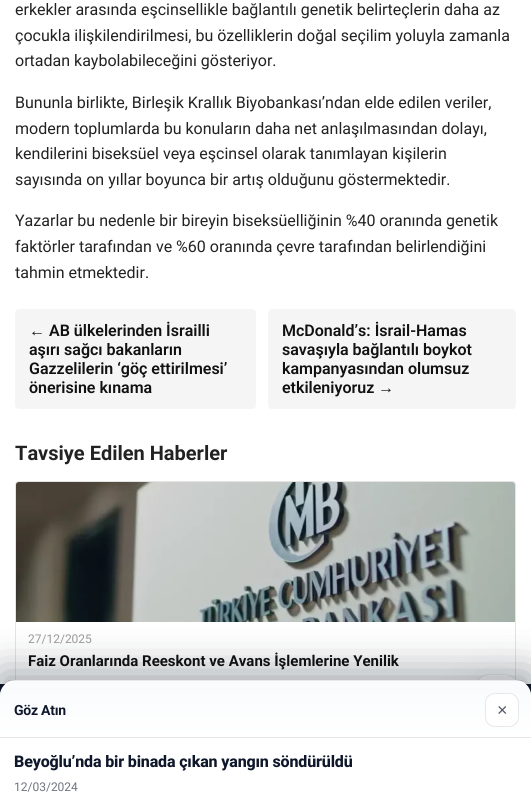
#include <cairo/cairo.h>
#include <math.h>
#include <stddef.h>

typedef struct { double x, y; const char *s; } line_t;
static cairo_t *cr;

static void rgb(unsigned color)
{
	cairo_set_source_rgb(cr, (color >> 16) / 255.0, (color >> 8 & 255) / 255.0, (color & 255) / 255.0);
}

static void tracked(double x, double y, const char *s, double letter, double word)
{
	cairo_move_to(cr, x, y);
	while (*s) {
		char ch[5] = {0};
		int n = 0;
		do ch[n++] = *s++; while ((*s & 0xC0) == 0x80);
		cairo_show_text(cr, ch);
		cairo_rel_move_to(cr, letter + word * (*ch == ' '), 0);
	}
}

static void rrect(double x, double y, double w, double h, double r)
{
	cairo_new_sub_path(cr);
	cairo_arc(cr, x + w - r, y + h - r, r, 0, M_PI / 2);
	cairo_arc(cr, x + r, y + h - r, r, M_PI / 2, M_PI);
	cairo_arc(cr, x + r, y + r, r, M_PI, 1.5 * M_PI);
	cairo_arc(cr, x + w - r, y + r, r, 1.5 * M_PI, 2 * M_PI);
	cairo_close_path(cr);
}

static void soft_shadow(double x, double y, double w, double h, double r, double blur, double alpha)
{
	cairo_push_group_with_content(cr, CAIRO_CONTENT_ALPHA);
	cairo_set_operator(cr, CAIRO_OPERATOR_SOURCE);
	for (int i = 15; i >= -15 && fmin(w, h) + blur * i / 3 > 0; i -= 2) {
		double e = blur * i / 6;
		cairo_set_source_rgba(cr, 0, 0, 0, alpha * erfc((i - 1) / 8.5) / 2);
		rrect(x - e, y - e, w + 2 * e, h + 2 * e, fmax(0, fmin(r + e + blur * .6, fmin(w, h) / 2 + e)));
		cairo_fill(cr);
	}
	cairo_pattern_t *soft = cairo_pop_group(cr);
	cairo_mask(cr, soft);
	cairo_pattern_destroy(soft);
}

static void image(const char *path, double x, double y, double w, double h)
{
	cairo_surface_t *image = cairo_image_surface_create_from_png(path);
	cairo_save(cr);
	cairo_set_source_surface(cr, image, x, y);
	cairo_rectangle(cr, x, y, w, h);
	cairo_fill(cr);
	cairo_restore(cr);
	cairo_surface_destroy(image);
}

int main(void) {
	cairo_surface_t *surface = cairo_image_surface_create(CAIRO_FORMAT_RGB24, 531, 810);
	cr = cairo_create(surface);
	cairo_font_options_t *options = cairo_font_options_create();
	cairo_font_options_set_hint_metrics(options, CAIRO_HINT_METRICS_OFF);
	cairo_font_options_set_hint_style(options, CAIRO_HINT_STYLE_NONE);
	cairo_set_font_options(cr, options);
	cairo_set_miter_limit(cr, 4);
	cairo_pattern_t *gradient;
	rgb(0xffffff);
	cairo_paint(cr);
	rgb(0xf5f5f5);
	rrect(15, 309, 241, 100, 4);
	cairo_fill(cr);
	rrect(268, 309, 248, 100, 4);
	cairo_fill(cr);
	rrect(15.5, 481.5, 500, 203, 3.5);
	rgb(0xe4e4e4);
	cairo_set_line_width(cr, 1);
	cairo_stroke(cr);
	image("img/1.png", 16, 482, 499, 140);
	rgb(0x0f172a);
	soft_shadow(475, 688, 44, 44, 14, 19, 0.18);
	rgb(0xffffff);
	rrect(475, 674, 44, 44, 14);
	cairo_fill(cr);
	rrect(475.5, 674.5, 43, 43, 13.5);
	cairo_set_source_rgba(cr, 0.059, 0.09, 0.165, 0.1);
	cairo_stroke(cr);
	rgb(0x0c1522);
	soft_shadow(0, 672, 531, 126, 0, 20, 0.35);
	rgb(0x0b1526);
	cairo_rectangle(cr, 0, 684, 531, 12);
	cairo_fill(cr);
	rgb(0x0f172a);
	soft_shadow(0, 698, 531, 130, 16, 27.5, 0.18);
	rgb(0xffffff);
	cairo_new_path(cr);
	cairo_move_to(cr, 16, 680);
	cairo_line_to(cr, 515, 680);
	cairo_curve_to(cr, 524, 680, 531, 687, 531, 696);
	cairo_line_to(cr, 531, 810);
	cairo_line_to(cr, 0, 810);
	cairo_line_to(cr, 0, 696);
	cairo_curve_to(cr, 0, 687, 7, 680, 16, 680);
	cairo_close_path(cr);
	cairo_fill(cr);
	cairo_set_source_rgba(cr, 0.059, 0.09, 0.165, 0.1);
	cairo_rectangle(cr, 8, 680, 515, 1);
	cairo_fill(cr);
	gradient = cairo_pattern_create_linear(266, 681, 266, 737);
	cairo_pattern_add_color_stop_rgba(gradient, 0, 0.973, 0.98, 0.988, 0.95);
	cairo_pattern_add_color_stop_rgba(gradient, 1, 1, 1, 1, 0.95);
	cairo_set_source(cr, gradient);
	cairo_pattern_destroy(gradient);
	cairo_new_path(cr);
	cairo_move_to(cr, 16, 681);
	cairo_curve_to(cr, 7, 681, 0, 688, 0, 696);
	cairo_line_to(cr, 0, 737);
	cairo_line_to(cr, 531, 737);
	cairo_line_to(cr, 531, 696);
	cairo_curve_to(cr, 531, 688, 524, 681, 515, 681);
	cairo_close_path(cr);
	cairo_fill(cr);
	rgb(0xe5e8eb);
	cairo_rectangle(cr, 0, 737, 531, 1);
	cairo_fill(cr);
	rgb(0xffffff);
	rrect(485.5, 693.5, 33, 33, 9.5);
	cairo_fill_preserve(cr);
	rgb(0xe7e8ea);
	cairo_stroke(cr);
	cairo_select_font_face(cr, "Roboto", CAIRO_FONT_SLANT_NORMAL, CAIRO_FONT_WEIGHT_NORMAL);
	cairo_set_font_size(cr, 16);
	rgb(0x222222);
	{
		static const line_t items[] = {
			{15, 15, "erkekler arasında eşcinsellikle bağlantılı genetik belirteçlerin daha az"},
			{15, 41, "çocukla ilişkilendirilmesi, bu özelliklerin doğal seçilim yoluyla zamanla"},
			{15, 66, "ortadan kaybolabileceğini gösteriyor."},
			{15, 108, "Bununla birlikte, Birleşik Krallık Biyobankası’ndan elde edilen veriler,"},
			{15, 134, "modern toplumlarda bu konuların daha net anlaşılmasından dolayı,"},
			{15, 159, "kendilerini biseksüel veya eşcinsel olarak tanımlayan kişilerin"},
			{15, 185, "sayısında on yıllar boyunca bir artış olduğunu göstermektedir."},
			{15, 226, "Yazarlar bu nedenle bir bireyin biseksüelliğinin %40 oranında genetik"},
			{15, 252, "faktörler tarafından ve %60 oranında çevre tarafından belirlendiğini"},
			{15, 278, "tahmin etmektedir."},
		};
		for (size_t i = 0; i < sizeof items / sizeof *items; i++) {
			cairo_move_to(cr, items[i].x, items[i].y);
			cairo_show_text(cr, items[i].s);
		}
	}
	cairo_select_font_face(cr, "Liberation Sans", CAIRO_FONT_SLANT_NORMAL, CAIRO_FONT_WEIGHT_BOLD);
	rgb(0x111111);
	cairo_move_to(cr, 29, 336);
	cairo_show_text(cr, "←");
	cairo_select_font_face(cr, "Roboto SemiBold", CAIRO_FONT_SLANT_NORMAL, CAIRO_FONT_WEIGHT_NORMAL);
	{
		static const line_t items[] = {
			{49, 336, "AB ülkelerinden İsrailli"},
			{29, 355, "aşırı sağcı bakanların"},
			{29, 374, "Gazzelilerin ‘göç ettirilmesi’"},
			{29, 393, "önerisine kınama"},
			{282, 336, "McDonald’s: İsrail-Hamas"},
			{282, 355, "savaşıyla bağlantılı boykot"},
			{282, 374, "kampanyasından olumsuz"},
			{282, 393, "etkileniyoruz"},
		};
		for (size_t i = 0; i < sizeof items / sizeof *items; i++) {
			cairo_move_to(cr, items[i].x, items[i].y);
			cairo_show_text(cr, items[i].s);
		}
	}
	cairo_select_font_face(cr, "Liberation Sans", CAIRO_FONT_SLANT_NORMAL, CAIRO_FONT_WEIGHT_BOLD);
	cairo_move_to(cr, 378, 393);
	cairo_show_text(cr, "→");
	cairo_select_font_face(cr, "Roboto", CAIRO_FONT_SLANT_NORMAL, CAIRO_FONT_WEIGHT_BOLD);
	cairo_set_font_size(cr, 20);
	rgb(0x222222);
	cairo_move_to(cr, 15, 460);
	cairo_show_text(cr, "Tavsiye Edilen Haberler");
	cairo_select_font_face(cr, "Roboto", CAIRO_FONT_SLANT_NORMAL, CAIRO_FONT_WEIGHT_NORMAL);
	cairo_set_font_size(cr, 12);
	rgb(0x999999);
	cairo_move_to(cr, 28, 643);
	cairo_show_text(cr, "27/12/2025");
	cairo_select_font_face(cr, "Roboto", CAIRO_FONT_SLANT_NORMAL, CAIRO_FONT_WEIGHT_BOLD);
	cairo_set_font_size(cr, 15);
	rgb(0x111111);
	cairo_move_to(cr, 28, 666);
	cairo_show_text(cr, "Faiz Oranlarında Reeskont ve Avans İşlemlerine Yenilik");
	cairo_set_font_size(cr, 14);
	rgb(0x0f172a);
	tracked(14, 715, "Göz Atın", -0.25, 0);
	cairo_select_font_face(cr, "Liberation Sans", CAIRO_FONT_SLANT_NORMAL, CAIRO_FONT_WEIGHT_NORMAL);
	cairo_set_font_size(cr, 18);
	rgb(0x525866);
	cairo_move_to(cr, 497, 716);
	cairo_show_text(cr, "×");
	cairo_select_font_face(cr, "Roboto ExtraBold", CAIRO_FONT_SLANT_NORMAL, CAIRO_FONT_WEIGHT_NORMAL);
	cairo_set_font_size(cr, 16);
	rgb(0x0f172a);
	tracked(14, 767, "Beyoğlu’nda bir binada çıkan yangın söndürüldü", -0.15, 0);
	cairo_select_font_face(cr, "Roboto", CAIRO_FONT_SLANT_NORMAL, CAIRO_FONT_WEIGHT_NORMAL);
	cairo_set_font_size(cr, 12);
	rgb(0x6f747f);
	cairo_move_to(cr, 14, 791);
	cairo_show_text(cr, "12/03/2024");
	cairo_surface_write_to_png(surface, "page.png");
	cairo_font_options_destroy(options);
	cairo_destroy(cr);
	cairo_surface_destroy(surface);
	return 0;
}
